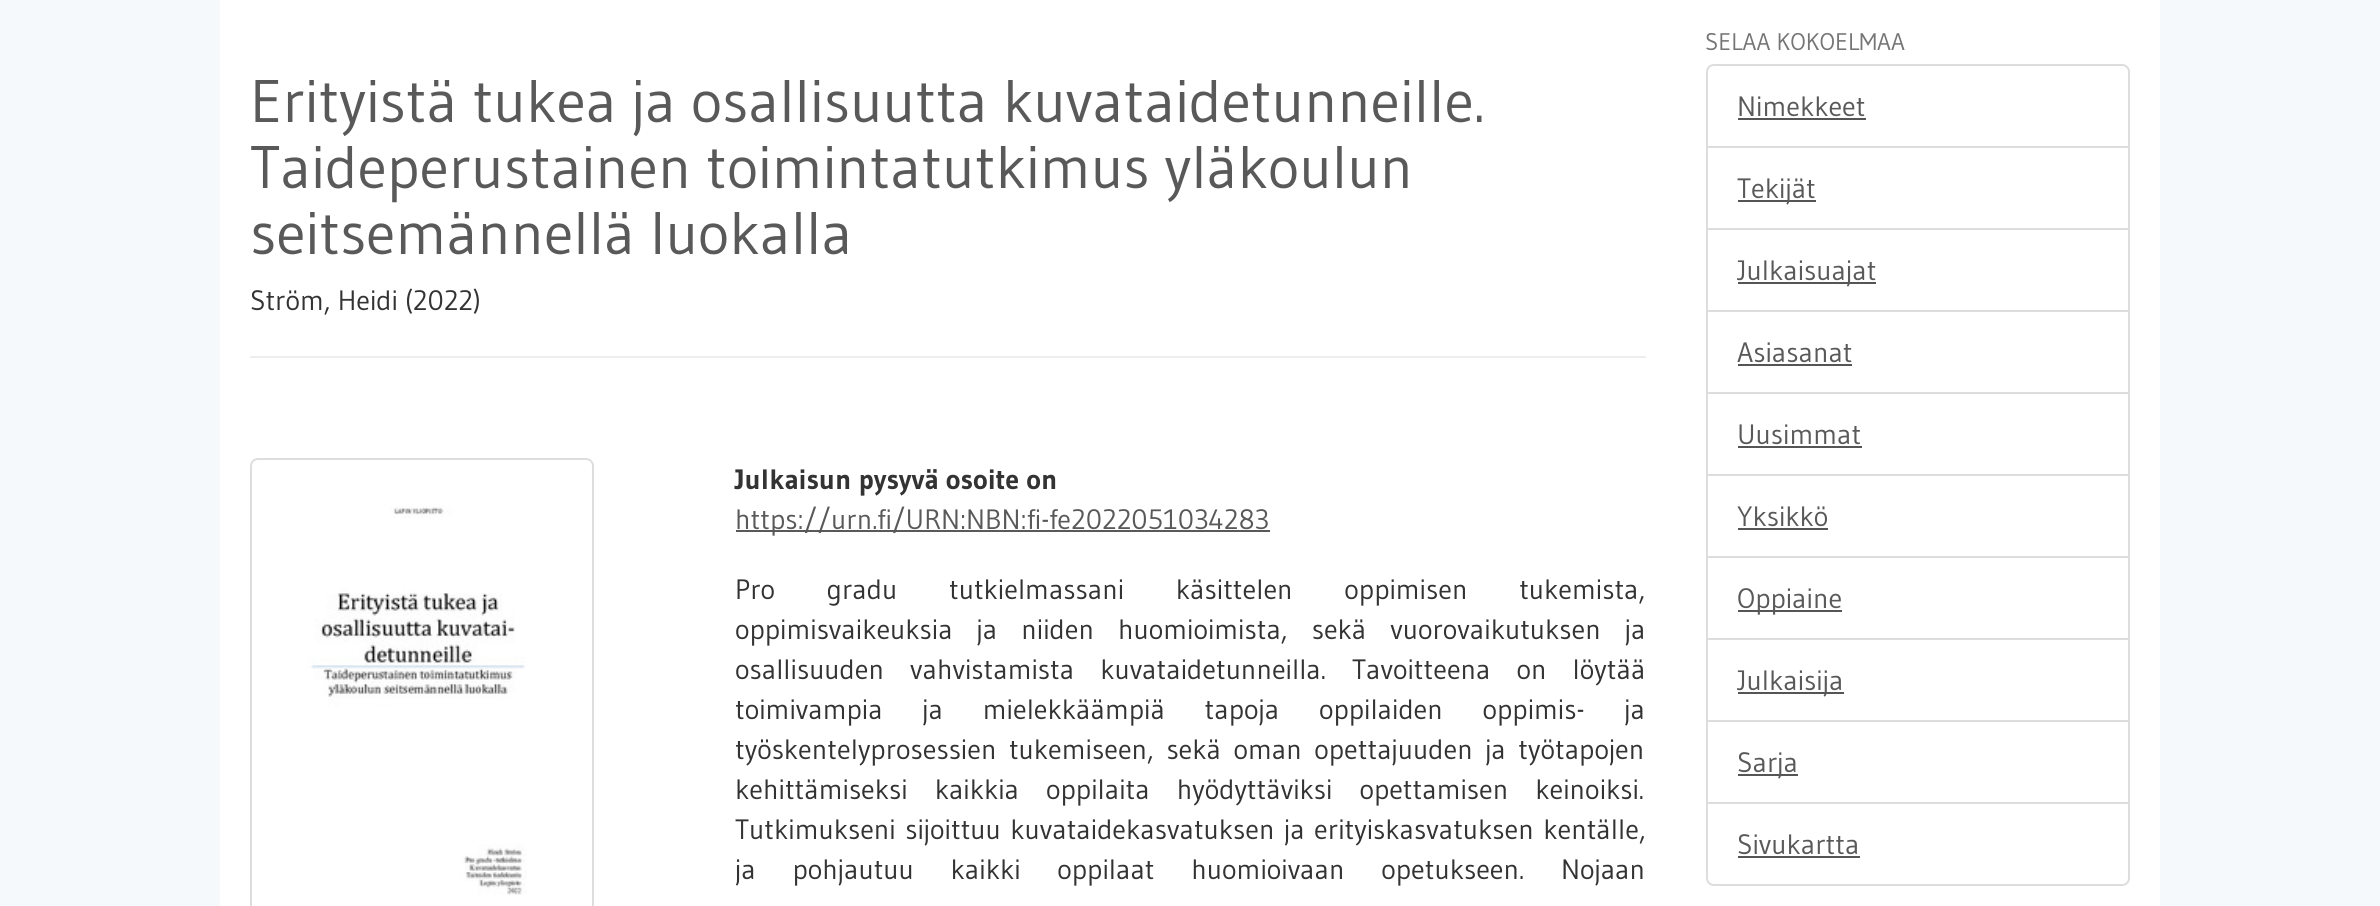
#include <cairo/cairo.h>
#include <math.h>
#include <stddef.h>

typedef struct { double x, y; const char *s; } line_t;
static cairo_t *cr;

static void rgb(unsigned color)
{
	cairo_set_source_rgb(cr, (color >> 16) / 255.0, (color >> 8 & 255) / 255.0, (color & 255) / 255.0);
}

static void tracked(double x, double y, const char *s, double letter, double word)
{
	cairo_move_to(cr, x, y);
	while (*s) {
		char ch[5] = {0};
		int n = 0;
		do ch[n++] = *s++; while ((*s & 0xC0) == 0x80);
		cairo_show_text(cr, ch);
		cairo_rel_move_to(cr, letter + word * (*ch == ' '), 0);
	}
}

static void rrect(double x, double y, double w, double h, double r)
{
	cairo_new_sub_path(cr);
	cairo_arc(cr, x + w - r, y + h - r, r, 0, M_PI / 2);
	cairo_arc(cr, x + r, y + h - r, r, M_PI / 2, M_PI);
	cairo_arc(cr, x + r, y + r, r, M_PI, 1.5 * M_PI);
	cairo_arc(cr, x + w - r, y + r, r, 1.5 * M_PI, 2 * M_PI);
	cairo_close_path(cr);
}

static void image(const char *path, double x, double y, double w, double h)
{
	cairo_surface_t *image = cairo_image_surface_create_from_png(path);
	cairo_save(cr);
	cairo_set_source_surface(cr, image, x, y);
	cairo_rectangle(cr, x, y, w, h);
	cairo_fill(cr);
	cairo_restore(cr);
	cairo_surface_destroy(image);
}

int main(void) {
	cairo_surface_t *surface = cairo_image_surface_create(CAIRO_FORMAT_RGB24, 2380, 906);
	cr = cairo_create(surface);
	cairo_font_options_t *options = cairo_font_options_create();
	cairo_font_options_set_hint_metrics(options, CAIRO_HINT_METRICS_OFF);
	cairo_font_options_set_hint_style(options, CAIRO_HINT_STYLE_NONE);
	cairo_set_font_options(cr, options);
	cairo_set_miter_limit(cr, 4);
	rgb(0xf6f9fc);
	cairo_paint(cr);
	rgb(0xffffff);
	cairo_rectangle(cr, 220, 0, 1940, 906);
	cairo_fill(cr);
	rgb(0xeeeeee);
	cairo_rectangle(cr, 250, 356, 1396, 2);
	cairo_fill(cr);
	rrect(251, 459, 342, 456, 7);
	rgb(0xdddddd);
	cairo_stroke(cr);
	image("img/1.png", 307, 506, 220, 389);
	rgb(0x595959);
	cairo_rectangle(cr, 736, 530, 534, 2);
	cairo_fill(cr);
	cairo_new_path(cr);
	cairo_move_to(cr, 1714, 65);
	cairo_line_to(cr, 2122, 65);
	cairo_curve_to(cr, 2126, 65, 2129, 68, 2129, 72);
	cairo_line_to(cr, 2129, 147);
	cairo_line_to(cr, 1707, 147);
	cairo_line_to(cr, 1707, 72);
	cairo_curve_to(cr, 1707, 68, 1710, 65, 1714, 65);
	cairo_close_path(cr);
	rgb(0xdddddd);
	cairo_stroke(cr);
	rgb(0x555555);
	cairo_rectangle(cr, 1738, 118, 128, 2);
	cairo_fill(cr);
	cairo_rectangle(cr, 1707, 147, 422, 82);
	rgb(0xdddddd);
	cairo_stroke(cr);
	rgb(0x555555);
	cairo_rectangle(cr, 1738, 200, 78, 2);
	cairo_fill(cr);
	cairo_rectangle(cr, 1707, 229, 422, 82);
	rgb(0xdddddd);
	cairo_stroke(cr);
	rgb(0x555555);
	cairo_rectangle(cr, 1738, 282, 138, 2);
	cairo_fill(cr);
	cairo_rectangle(cr, 1707, 311, 422, 82);
	rgb(0xdddddd);
	cairo_stroke(cr);
	rgb(0x555555);
	cairo_rectangle(cr, 1738, 364, 114, 2);
	cairo_fill(cr);
	cairo_rectangle(cr, 1707, 393, 422, 82);
	rgb(0xdddddd);
	cairo_stroke(cr);
	rgb(0x555555);
	cairo_rectangle(cr, 1738, 446, 124, 2);
	cairo_fill(cr);
	cairo_rectangle(cr, 1707, 475, 422, 82);
	rgb(0xdddddd);
	cairo_stroke(cr);
	rgb(0x555555);
	cairo_rectangle(cr, 1738, 528, 90, 2);
	cairo_fill(cr);
	cairo_rectangle(cr, 1707, 557, 422, 82);
	rgb(0xdddddd);
	cairo_stroke(cr);
	rgb(0x555555);
	cairo_rectangle(cr, 1738, 610, 104, 2);
	cairo_fill(cr);
	cairo_rectangle(cr, 1707, 639, 422, 82);
	rgb(0xdddddd);
	cairo_stroke(cr);
	rgb(0x555555);
	cairo_rectangle(cr, 1738, 692, 106, 2);
	cairo_fill(cr);
	cairo_rectangle(cr, 1707, 721, 422, 82);
	rgb(0xdddddd);
	cairo_stroke(cr);
	rgb(0x555555);
	cairo_rectangle(cr, 1738, 774, 60, 2);
	cairo_fill(cr);
	rgb(0xffffff);
	cairo_new_path(cr);
	cairo_move_to(cr, 1707, 803);
	cairo_line_to(cr, 2129, 803);
	cairo_line_to(cr, 2129, 878);
	cairo_curve_to(cr, 2129, 882, 2126, 885, 2122, 885);
	cairo_line_to(cr, 1714, 885);
	cairo_curve_to(cr, 1710, 885, 1707, 882, 1707, 878);
	cairo_close_path(cr);
	cairo_fill_preserve(cr);
	rgb(0xdddddd);
	cairo_stroke(cr);
	rgb(0x555555);
	cairo_rectangle(cr, 1738, 856, 122, 2);
	cairo_fill(cr);
	cairo_select_font_face(cr, "Gudea", CAIRO_FONT_SLANT_NORMAL, CAIRO_FONT_WEIGHT_NORMAL);
	cairo_set_font_size(cr, 60);
	rgb(0x595959);
	{
		static const line_t items[] = {
			{250, 122, "Erityistä tukea ja osallisuutta kuvataidetunneille."},
			{250, 188, "Taideperustainen toimintatutkimus yläkoulun"},
			{250, 254, "seitsemännellä luokalla"},
		};
		for (size_t i = 0; i < sizeof items / sizeof *items; i++) {
			cairo_move_to(cr, items[i].x, items[i].y);
			cairo_show_text(cr, items[i].s);
		}
	}
	cairo_set_font_size(cr, 28);
	rgb(0x333333);
	cairo_move_to(cr, 250, 310);
	cairo_show_text(cr, "Ström, Heidi (2022)");
	cairo_select_font_face(cr, "Gudea", CAIRO_FONT_SLANT_NORMAL, CAIRO_FONT_WEIGHT_BOLD);
	cairo_move_to(cr, 735, 489);
	cairo_show_text(cr, "Julkaisun pysyvä osoite on");
	cairo_select_font_face(cr, "Gudea", CAIRO_FONT_SLANT_NORMAL, CAIRO_FONT_WEIGHT_NORMAL);
	rgb(0x595959);
	cairo_move_to(cr, 735, 529);
	cairo_show_text(cr, "https://urn.fi/URN:NBN:fi-fe2022051034283");
	rgb(0x333333);
	tracked(735, 599, "Pro gradu tutkielmassani käsittelen oppimisen tukemista,", 0, 44.75);
	tracked(735, 639, "oppimisvaikeuksia ja niiden huomioimista, sekä vuorovaikutuksen ja", 0, 17);
	tracked(735, 679, "osallisuuden vahvistamista kuvataidetunneilla. Tavoitteena on löytää", 0, 19);
	tracked(735, 719, "toimivampia ja mielekkäämpiä tapoja oppilaiden oppimis- ja", 0, 32.75);
	tracked(735, 759, "työskentelyprosessien tukemiseen, sekä oman opettajuuden ja työtapojen", 0, 5.5);
	tracked(735, 799, "kehittämiseksi kaikkia oppilaita hyödyttäviksi opettamisen keinoiksi.", 0, 20);
	tracked(735, 839, "Tutkimukseni sijoittuu kuvataidekasvatuksen ja erityiskasvatuksen kentälle,", 0, 2.5);
	tracked(735, 879, "ja pohjautuu kaikki oppilaat huomioivaan opetukseen. Nojaan", 0, 29.75);
	cairo_set_font_size(cr, 24);
	rgb(0x757575);
	cairo_move_to(cr, 1705, 50);
	cairo_show_text(cr, "SELAA KOKOELMAA");
	cairo_set_font_size(cr, 28);
	rgb(0x595959);
	{
		static const line_t items[] = {
			{1737, 116, "Nimekkeet"},
			{1737, 198, "Tekijät"},
			{1737, 280, "Julkaisuajat"},
			{1737, 362, "Asiasanat"},
			{1737, 444, "Uusimmat"},
			{1737, 526, "Yksikkö"},
			{1737, 608, "Oppiaine"},
			{1737, 690, "Julkaisija"},
			{1737, 772, "Sarja"},
			{1737, 854, "Sivukartta"},
		};
		for (size_t i = 0; i < sizeof items / sizeof *items; i++) {
			cairo_move_to(cr, items[i].x, items[i].y);
			cairo_show_text(cr, items[i].s);
		}
	}
	cairo_surface_write_to_png(surface, "page.png");
	cairo_font_options_destroy(options);
	cairo_destroy(cr);
	cairo_surface_destroy(surface);
	return 0;
}
